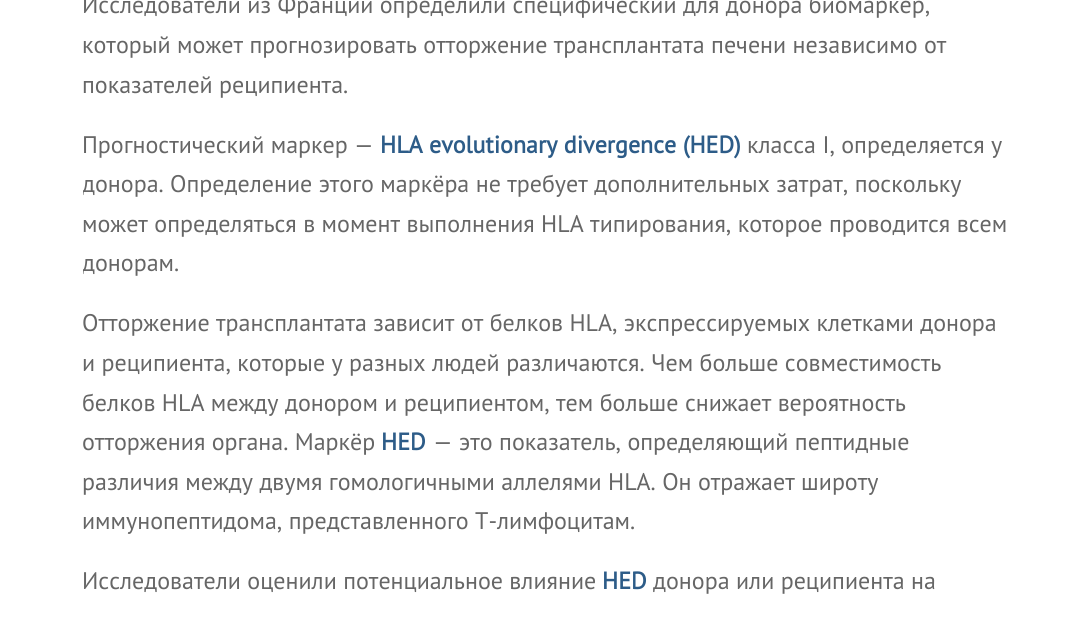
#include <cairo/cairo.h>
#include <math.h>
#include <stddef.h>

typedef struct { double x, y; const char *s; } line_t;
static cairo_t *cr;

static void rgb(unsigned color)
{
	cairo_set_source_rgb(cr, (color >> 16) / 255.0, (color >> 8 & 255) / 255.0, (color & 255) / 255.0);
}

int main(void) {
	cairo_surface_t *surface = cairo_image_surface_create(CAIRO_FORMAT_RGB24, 1090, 619);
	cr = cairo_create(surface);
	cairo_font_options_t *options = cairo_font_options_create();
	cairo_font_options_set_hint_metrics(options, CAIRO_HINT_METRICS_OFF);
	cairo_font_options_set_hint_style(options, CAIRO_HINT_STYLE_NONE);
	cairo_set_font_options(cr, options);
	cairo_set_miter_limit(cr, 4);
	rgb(0xffffff);
	cairo_paint(cr);
	cairo_select_font_face(cr, "PT Sans", CAIRO_FONT_SLANT_NORMAL, CAIRO_FONT_WEIGHT_NORMAL);
	cairo_set_font_size(cr, 24);
	rgb(0x666666);
	{
		static const line_t items[] = {
			{82, 13, "Исследователи из Франции определили специфический для донора биомаркер,"},
			{82, 53, "который может прогнозировать отторжение трансплантата печени независимо от"},
			{82, 93, "показателей реципиента."},
			{82, 153, "Прогностический маркер —"},
		};
		for (size_t i = 0; i < sizeof items / sizeof *items; i++) {
			cairo_move_to(cr, items[i].x, items[i].y);
			cairo_show_text(cr, items[i].s);
		}
	}
	cairo_select_font_face(cr, "PT Sans", CAIRO_FONT_SLANT_NORMAL, CAIRO_FONT_WEIGHT_BOLD);
	rgb(0x2d5c88);
	cairo_move_to(cr, 380, 153);
	cairo_show_text(cr, "HLA evolutionary divergence (HED)");
	cairo_select_font_face(cr, "PT Sans", CAIRO_FONT_SLANT_NORMAL, CAIRO_FONT_WEIGHT_NORMAL);
	rgb(0x666666);
	cairo_move_to(cr, 747, 153);
	cairo_show_text(cr, "класса I, определяется у");
	cairo_save(cr);
	cairo_rectangle(cr, 83, 0, 925, 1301);
	cairo_clip(cr);
	cairo_move_to(cr, 82, 192);
	cairo_show_text(cr, "донора. Определение этого маркёра не требует дополнительных затрат, поскольку");
	cairo_restore(cr);
	cairo_move_to(cr, 82, 232);
	cairo_show_text(cr, "может определяться в момент выполнения HLA типирования, которое проводится всем");
	cairo_save(cr);
	cairo_rectangle(cr, 83, 0, 925, 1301);
	cairo_clip(cr);
	cairo_move_to(cr, 82, 271);
	cairo_show_text(cr, "донорам.");
	cairo_restore(cr);
	{
		static const line_t items[] = {
			{82, 331, "Отторжение трансплантата зависит от белков HLA, экспрессируемых клетками донора"},
			{82, 371, "и реципиента, которые у разных людей различаются. Чем больше совместимость"},
			{82, 411, "белков HLA между донором и реципиентом, тем больше снижает вероятность"},
			{82, 450, "отторжения органа. Маркёр"},
		};
		for (size_t i = 0; i < sizeof items / sizeof *items; i++) {
			cairo_move_to(cr, items[i].x, items[i].y);
			cairo_show_text(cr, items[i].s);
		}
	}
	cairo_select_font_face(cr, "PT Sans", CAIRO_FONT_SLANT_NORMAL, CAIRO_FONT_WEIGHT_BOLD);
	rgb(0x2d5c88);
	cairo_move_to(cr, 381, 450);
	cairo_show_text(cr, "HED");
	cairo_select_font_face(cr, "PT Sans", CAIRO_FONT_SLANT_NORMAL, CAIRO_FONT_WEIGHT_NORMAL);
	rgb(0x666666);
	{
		static const line_t items[] = {
			{433, 450, "— это показатель, определяющий пептидные"},
			{82, 490, "различия между двумя гомологичными аллелями HLA. Он отражает широту"},
			{82, 529, "иммунопептидома, представленного Т-лимфоцитам."},
			{82, 589, "Исследователи оценили потенциальное влияние"},
		};
		for (size_t i = 0; i < sizeof items / sizeof *items; i++) {
			cairo_move_to(cr, items[i].x, items[i].y);
			cairo_show_text(cr, items[i].s);
		}
	}
	cairo_select_font_face(cr, "PT Sans", CAIRO_FONT_SLANT_NORMAL, CAIRO_FONT_WEIGHT_BOLD);
	rgb(0x2d5c88);
	cairo_move_to(cr, 602, 589);
	cairo_show_text(cr, "HED");
	cairo_select_font_face(cr, "PT Sans", CAIRO_FONT_SLANT_NORMAL, CAIRO_FONT_WEIGHT_NORMAL);
	rgb(0x666666);
	cairo_move_to(cr, 653, 589);
	cairo_show_text(cr, "донора или реципиента на");
	cairo_surface_write_to_png(surface, "page.png");
	cairo_font_options_destroy(options);
	cairo_destroy(cr);
	cairo_surface_destroy(surface);
	return 0;
}
